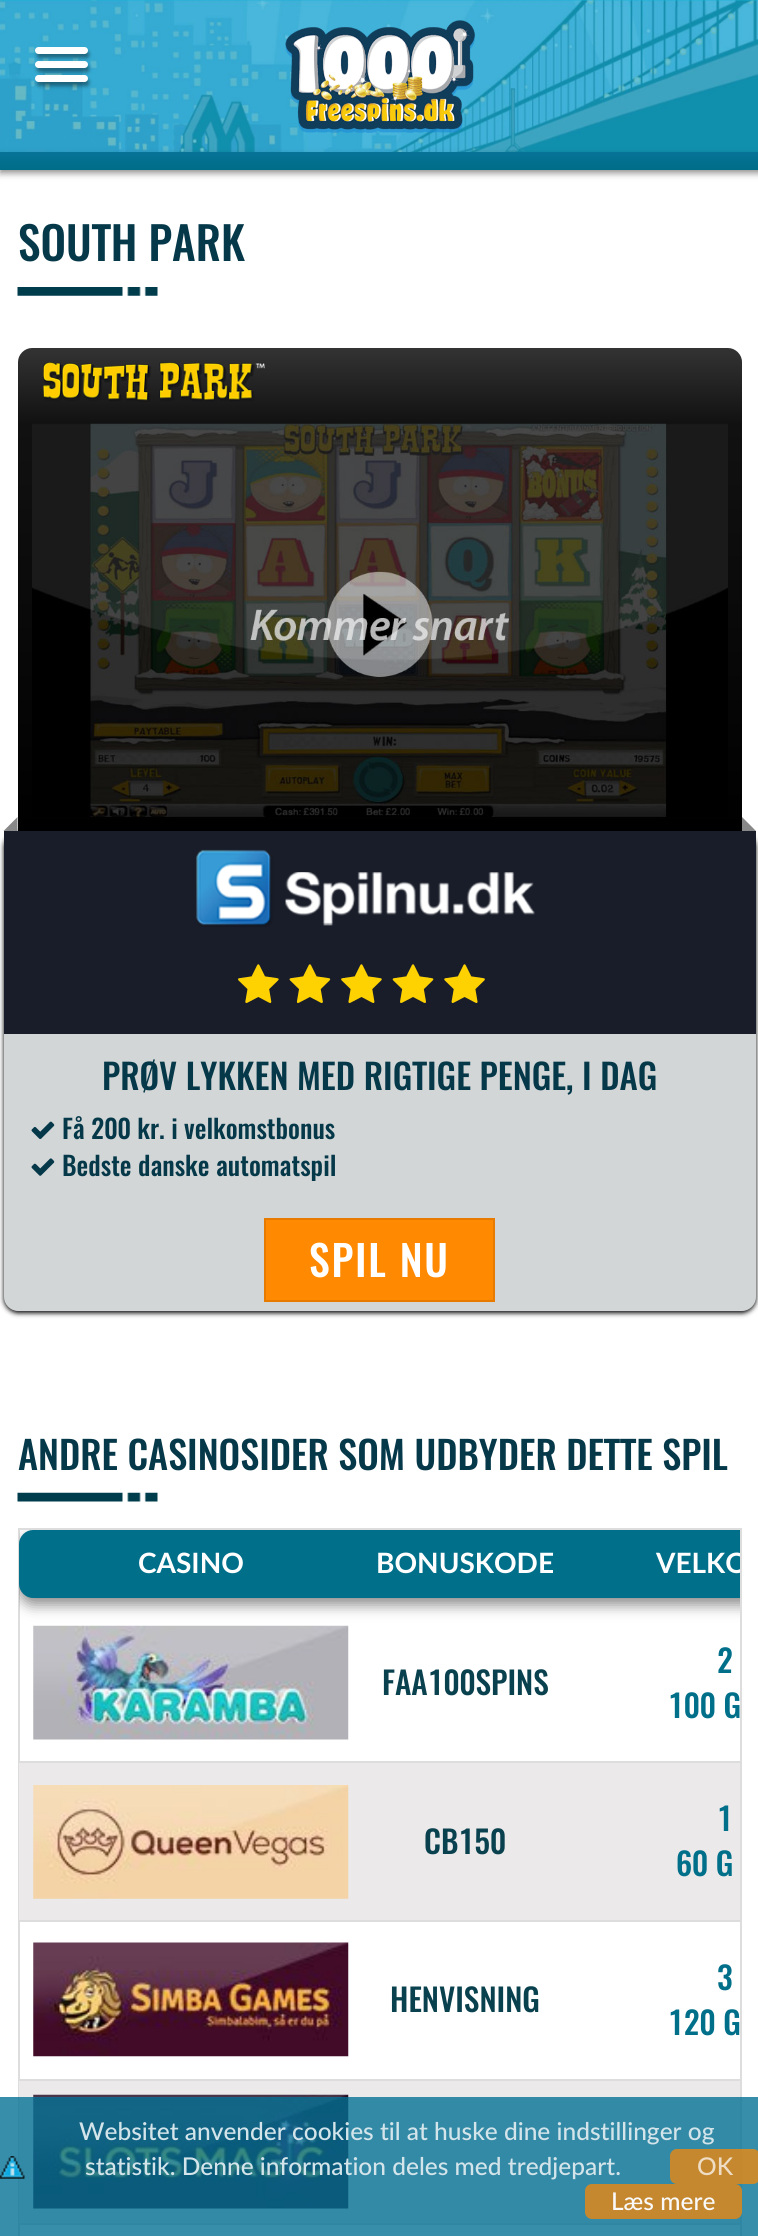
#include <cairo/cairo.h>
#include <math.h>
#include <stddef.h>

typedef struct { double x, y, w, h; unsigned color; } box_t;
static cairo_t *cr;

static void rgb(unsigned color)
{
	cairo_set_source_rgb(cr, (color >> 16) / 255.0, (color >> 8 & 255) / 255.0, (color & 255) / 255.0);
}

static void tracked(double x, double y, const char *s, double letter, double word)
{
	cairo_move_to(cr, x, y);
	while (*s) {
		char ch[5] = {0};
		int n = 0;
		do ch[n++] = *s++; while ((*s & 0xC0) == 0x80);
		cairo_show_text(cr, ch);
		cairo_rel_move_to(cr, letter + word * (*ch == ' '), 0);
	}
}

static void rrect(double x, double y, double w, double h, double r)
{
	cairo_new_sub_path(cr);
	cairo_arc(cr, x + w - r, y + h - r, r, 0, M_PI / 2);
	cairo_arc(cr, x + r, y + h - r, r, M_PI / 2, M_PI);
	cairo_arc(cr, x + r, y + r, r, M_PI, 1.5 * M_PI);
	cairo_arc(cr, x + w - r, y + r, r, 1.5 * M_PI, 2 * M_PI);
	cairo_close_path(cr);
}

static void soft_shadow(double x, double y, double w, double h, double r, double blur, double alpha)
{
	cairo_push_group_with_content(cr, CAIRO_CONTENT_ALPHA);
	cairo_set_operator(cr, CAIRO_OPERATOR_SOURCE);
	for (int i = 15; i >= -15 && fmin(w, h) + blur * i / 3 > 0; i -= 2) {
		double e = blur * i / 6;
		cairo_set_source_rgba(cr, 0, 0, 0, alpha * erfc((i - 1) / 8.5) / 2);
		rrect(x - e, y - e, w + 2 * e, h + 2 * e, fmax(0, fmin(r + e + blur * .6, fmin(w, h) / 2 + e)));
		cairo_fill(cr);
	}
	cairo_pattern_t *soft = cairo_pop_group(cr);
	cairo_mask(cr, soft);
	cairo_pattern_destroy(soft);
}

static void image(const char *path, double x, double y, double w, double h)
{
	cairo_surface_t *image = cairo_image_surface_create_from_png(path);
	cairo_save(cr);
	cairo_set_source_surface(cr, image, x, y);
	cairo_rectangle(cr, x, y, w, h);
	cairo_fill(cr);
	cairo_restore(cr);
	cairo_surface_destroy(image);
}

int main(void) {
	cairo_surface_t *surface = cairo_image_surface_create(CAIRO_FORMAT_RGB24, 758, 2236);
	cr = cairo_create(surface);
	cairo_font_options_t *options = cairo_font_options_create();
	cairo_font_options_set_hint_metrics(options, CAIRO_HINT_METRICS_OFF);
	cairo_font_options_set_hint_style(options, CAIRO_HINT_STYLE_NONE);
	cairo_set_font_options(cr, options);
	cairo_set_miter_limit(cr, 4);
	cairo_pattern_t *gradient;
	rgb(0xffffff);
	cairo_paint(cr);
	image("img/1.png", 0, 0, 758, 152);
	rgb(0x000000);
	soft_shadow(37, 65, 52, 7, 3.5, 2, 0.4);
	rgb(0xffffff);
	rrect(35, 61, 53, 7, 3.5);
	cairo_fill(cr);
	rgb(0x000000);
	soft_shadow(37, 51, 52, 7, 3.5, 2, 0.4);
	rgb(0xffffff);
	rrect(35, 47, 53, 7, 3.5);
	cairo_fill(cr);
	rgb(0x000000);
	soft_shadow(37, 79, 52, 7, 3.5, 2, 0.4);
	rgb(0xffffff);
	rrect(35, 75, 53, 7, 3.5);
	cairo_fill(cr);
	image("img/2.png", 285, 20, 190, 113);
	rgb(0x000000);
	soft_shadow(0, 156, 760, 17, 0, 3.5, 0.45);
	gradient = cairo_pattern_create_linear(380, 152, 380, 170);
	cairo_pattern_add_color_stop_rgba(gradient, 0, 0.027, 0.451, 0.592, 1);
	cairo_pattern_add_color_stop_rgba(gradient, 1, 0, 0.427, 0.533, 1);
	cairo_set_source(cr, gradient);
	cairo_pattern_destroy(gradient);
	cairo_rectangle(cr, 0, 152, 758, 18);
	cairo_fill(cr);
	image("img/3.png", 17, 287, 141, 9);
	gradient = cairo_pattern_create_linear(380, 348, 380, 424);
	cairo_pattern_add_color_stop_rgba(gradient, 0, 0.2, 0.2, 0.2, 1);
	cairo_pattern_add_color_stop_rgba(gradient, 1, 0.067, 0.067, 0.067, 1);
	cairo_set_source(cr, gradient);
	cairo_pattern_destroy(gradient);
	cairo_new_path(cr);
	cairo_move_to(cr, 32, 348);
	cairo_line_to(cr, 728, 348);
	cairo_curve_to(cr, 735.5, 348, 742, 354.5, 742, 362);
	cairo_line_to(cr, 742, 424);
	cairo_line_to(cr, 18, 424);
	cairo_line_to(cr, 18, 362);
	cairo_curve_to(cr, 18, 354.5, 24.5, 348, 32, 348);
	cairo_close_path(cr);
	cairo_fill(cr);
	image("img/4.png", 43, 362, 222, 40);
	gradient = cairo_pattern_create_linear(380, 423, 380, 831);
	cairo_pattern_add_color_stop_rgba(gradient, 0, 0.067, 0.067, 0.067, 1);
	cairo_pattern_add_color_stop_rgba(gradient, 1, 0, 0, 0, 1);
	cairo_set_source(cr, gradient);
	cairo_pattern_destroy(gradient);
	cairo_rectangle(cr, 18, 424, 724, 407);
	cairo_fill(cr);
	image("img/5.png", 32, 423, 696, 394);
	rgb(0x000000);
	soft_shadow(4, 833, 752, 480, 14, 2.5, 1);
	rgb(0xd2d6d6);
	cairo_new_path(cr);
	cairo_move_to(cr, 4, 831);
	cairo_line_to(cr, 756, 831);
	cairo_line_to(cr, 756, 1297);
	cairo_curve_to(cr, 756, 1304.5, 749.5, 1311, 742, 1311);
	cairo_line_to(cr, 18, 1311);
	cairo_curve_to(cr, 10.5, 1311, 4, 1304.5, 4, 1297);
	cairo_close_path(cr);
	cairo_fill(cr);
	rgb(0x888888);
	cairo_new_path(cr);
	cairo_move_to(cr, 17.5, 831);
	cairo_line_to(cr, 3.5, 831);
	cairo_line_to(cr, 17.5, 817);
	cairo_close_path(cr);
	cairo_fill(cr);
	cairo_new_path(cr);
	cairo_move_to(cr, 742, 831);
	cairo_line_to(cr, 742, 817);
	cairo_line_to(cr, 756, 831);
	cairo_close_path(cr);
	cairo_fill(cr);
	rgb(0x191d29);
	cairo_rectangle(cr, 4, 831, 752, 203);
	cairo_fill(cr);
	image("img/6.png", 196, 849, 339, 78);
	image("img/7.png", 238, 964, 247, 39);
	image("img/8.png", 238, 964, 247, 39);
	image("img/9.png", 31, 1121, 24, 18);
	image("img/10.png", 31, 1158, 24, 18);
	rgb(0xff8901);
	cairo_rectangle(cr, 265, 1219, 229, 82);
	cairo_fill_preserve(cr);
	rgb(0xe67b00);
	cairo_stroke(cr);
	image("img/11.png", 17, 1492, 141, 10);
	cairo_rectangle(cr, 19, 1529, 722, 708);
	rgb(0xdddddd);
	cairo_stroke(cr);
	cairo_save(cr);
	cairo_rectangle(cr, 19, 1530, 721, 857);
	cairo_clip(cr);
	rgb(0x000000);
	soft_shadow(19, 1537, 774, 68, 14, 7, 0.45);
	cairo_restore(cr);
	rgb(0x006f8a);
	cairo_new_path(cr);
	cairo_move_to(cr, 33, 1530);
	cairo_line_to(cr, 362, 1530);
	cairo_line_to(cr, 362, 1598);
	cairo_line_to(cr, 33, 1598);
	cairo_curve_to(cr, 25.5, 1598, 19, 1591.5, 19, 1584);
	cairo_line_to(cr, 19, 1544);
	cairo_curve_to(cr, 19, 1536.5, 25.5, 1530, 33, 1530);
	cairo_close_path(cr);
	cairo_fill(cr);
	cairo_rectangle(cr, 362, 1530, 378, 68);
	cairo_fill(cr);
	image("img/12.png", 33, 1625, 316, 115);
	rgb(0xebe9ea);
	cairo_rectangle(cr, 19, 1763, 721, 157);
	cairo_fill(cr);
	image("img/13.png", 33, 1785, 316, 114);
	rgb(0xdddddd);
	cairo_rectangle(cr, 19, 1761, 721, 2);
	cairo_fill(cr);
	image("img/14.png", 33, 1942, 316, 115);
	{
		static const box_t items[] = {
			{19, 1920, 721, 2, 0xdddddd},
			{19, 2079, 721, 2, 0xdddddd},
			{19, 2081, 721, 142, 0xebe9ea},
		};
		for (size_t i = 0; i < sizeof items / sizeof *items; i++) {
			rgb(items[i].color);
			cairo_rectangle(cr, items[i].x, items[i].y, items[i].w, items[i].h);
			cairo_fill(cr);
		}
	}
	image("img/15.png", 33, 2094, 316, 115);
	rgb(0xdddddd);
	cairo_rectangle(cr, 19, 2223, 721, 2);
	cairo_fill(cr);
	cairo_set_source_rgba(cr, 0.02, 0.447, 0.584, 0.8);
	cairo_rectangle(cr, 0, 2097, 758, 139);
	cairo_fill(cr);
	image("img/16.png", 0, 2156, 25, 23);
	cairo_set_source_rgba(cr, 1, 0.537, 0.004, 0.72);
	rrect(670, 2149, 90, 35, 7);
	cairo_fill(cr);
	rrect(585, 2184, 157, 35, 7);
	cairo_fill(cr);
	cairo_select_font_face(cr, "Oswald Medium", CAIRO_FONT_SLANT_NORMAL, CAIRO_FONT_WEIGHT_NORMAL);
	cairo_set_font_size(cr, 45.5);
	rgb(0x053849);
	cairo_move_to(cr, 18, 261);
	cairo_show_text(cr, "SOUTH PARK");
	cairo_set_font_size(cr, 35);
	cairo_move_to(cr, 102, 1090);
	cairo_show_text(cr, "PRØV LYKKEN MED RIGTIGE PENGE, I DAG");
	cairo_set_font_size(cr, 26.25);
	cairo_move_to(cr, 62, 1139);
	cairo_show_text(cr, "Få 200 kr. i velkomstbonus");
	cairo_move_to(cr, 62, 1176);
	cairo_show_text(cr, "Bedste danske automatspil");
	cairo_set_font_size(cr, 42);
	rgb(0xffffff);
	tracked(309, 1277, "SPIL NU", 1.75, 0);
	cairo_set_font_size(cr, 38.5);
	rgb(0x053849);
	cairo_move_to(cr, 18, 1470);
	cairo_show_text(cr, "ANDRE CASINOSIDER SOM UDBYDER DETTE SPIL");
	cairo_select_font_face(cr, "Lato", CAIRO_FONT_SLANT_NORMAL, CAIRO_FONT_WEIGHT_BOLD);
	cairo_set_font_size(cr, 28);
	rgb(0xffffff);
	cairo_move_to(cr, 138, 1573);
	cairo_show_text(cr, "CASINO");
	cairo_move_to(cr, 376, 1573);
	cairo_show_text(cr, "BONUSKODE");
	cairo_save(cr);
	cairo_rectangle(cr, 19, 1530, 721, 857);
	cairo_clip(cr);
	cairo_move_to(cr, 656, 1573);
	cairo_show_text(cr, "VELKO");
	cairo_restore(cr);
	cairo_select_font_face(cr, "Oswald Medium", CAIRO_FONT_SLANT_NORMAL, CAIRO_FONT_WEIGHT_NORMAL);
	cairo_set_font_size(cr, 31.5);
	rgb(0x09414e);
	cairo_move_to(cr, 382, 1695);
	cairo_show_text(cr, "FAA100SPINS");
	rgb(0x006f8a);
	cairo_move_to(cr, 717, 1673);
	cairo_show_text(cr, "2");
	cairo_move_to(cr, 668, 1718);
	cairo_show_text(cr, "100 G");
	rgb(0x09414e);
	cairo_move_to(cr, 424, 1854);
	cairo_show_text(cr, "CB150");
	rgb(0x006f8a);
	cairo_move_to(cr, 717, 1831);
	cairo_show_text(cr, "1");
	cairo_move_to(cr, 676, 1876);
	cairo_show_text(cr, "60 G");
	rgb(0x09414e);
	cairo_move_to(cr, 390, 2012);
	cairo_show_text(cr, "HENVISNING");
	rgb(0x006f8a);
	cairo_move_to(cr, 717, 1990);
	cairo_show_text(cr, "3");
	cairo_move_to(cr, 668, 2035);
	cairo_show_text(cr, "120 G");
	cairo_select_font_face(cr, "Lato Medium", CAIRO_FONT_SLANT_NORMAL, CAIRO_FONT_WEIGHT_NORMAL);
	cairo_set_font_size(cr, 24.5);
	rgb(0xd3e4ea);
	cairo_move_to(cr, 79, 2140);
	cairo_show_text(cr, "Websitet anvender cookies til at huske dine indstillinger og");
	cairo_move_to(cr, 85, 2175);
	cairo_show_text(cr, "statistik. Denne information deles med tredjepart.");
	rgb(0xeeddc4);
	cairo_move_to(cr, 697, 2175);
	cairo_show_text(cr, "OK");
	rgb(0xf9f9f9);
	cairo_move_to(cr, 611, 2210);
	cairo_show_text(cr, "Læs mere");
	cairo_surface_write_to_png(surface, "page.png");
	cairo_font_options_destroy(options);
	cairo_destroy(cr);
	cairo_surface_destroy(surface);
	return 0;
}
